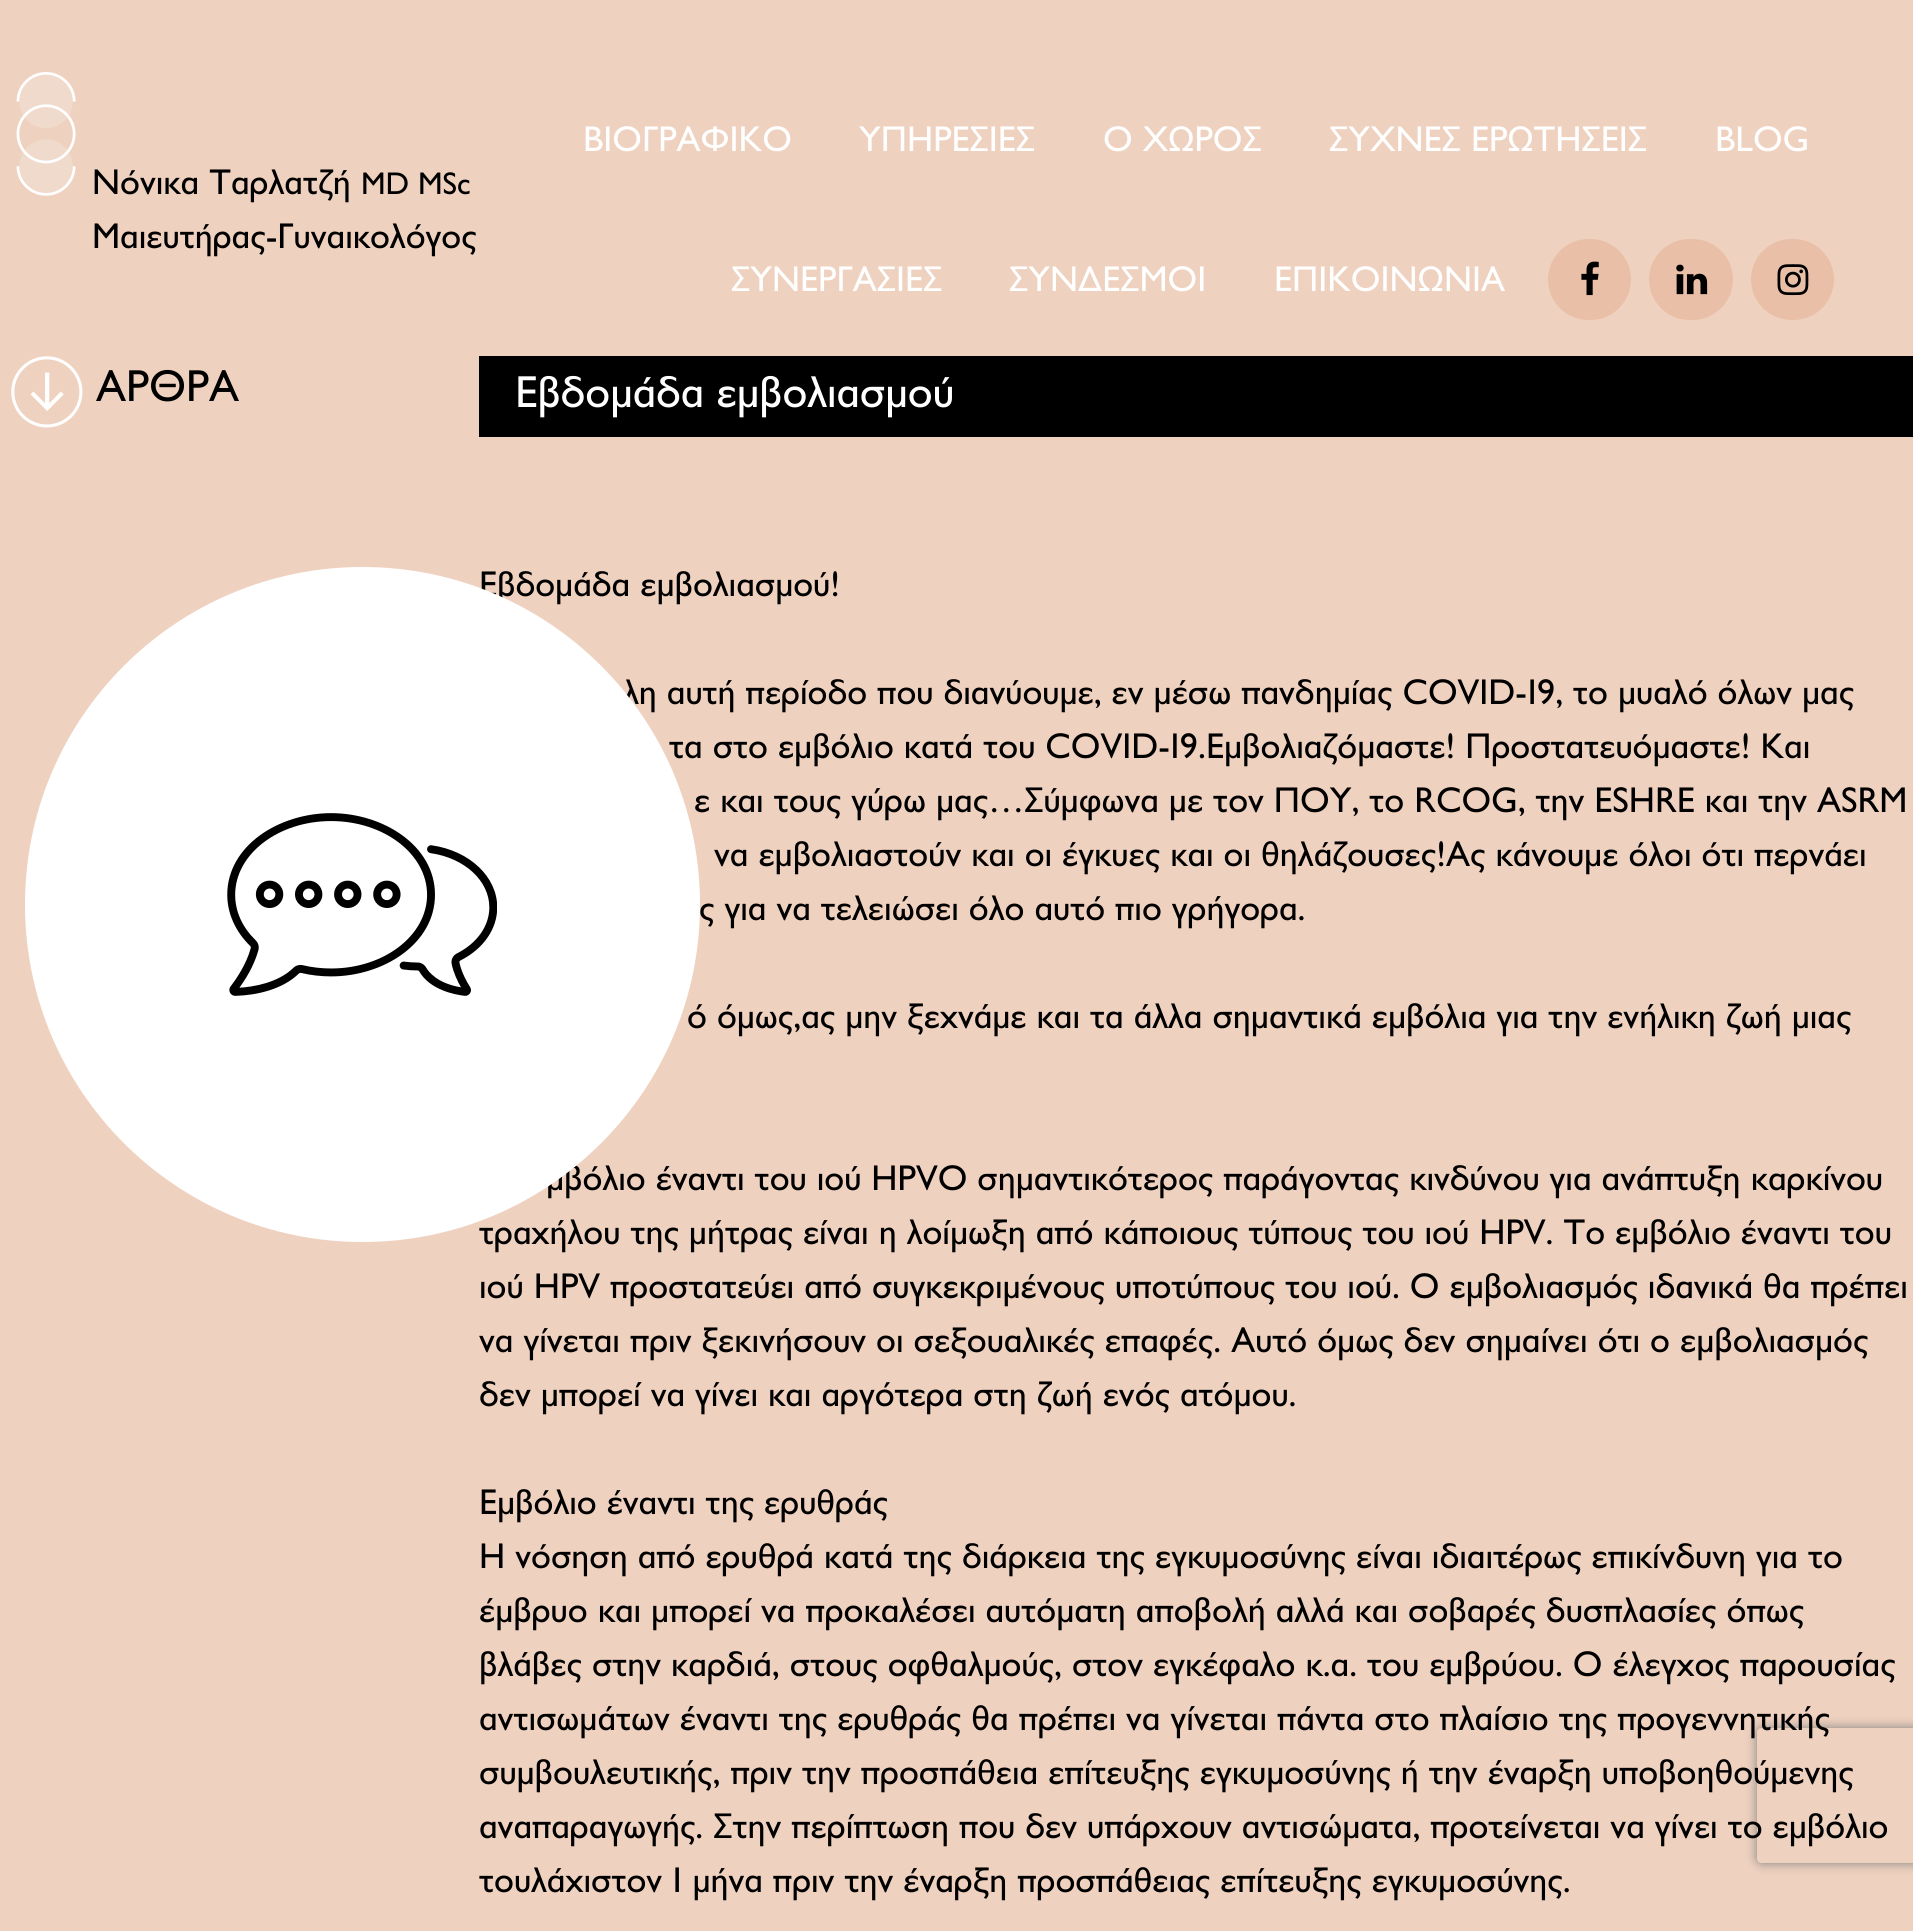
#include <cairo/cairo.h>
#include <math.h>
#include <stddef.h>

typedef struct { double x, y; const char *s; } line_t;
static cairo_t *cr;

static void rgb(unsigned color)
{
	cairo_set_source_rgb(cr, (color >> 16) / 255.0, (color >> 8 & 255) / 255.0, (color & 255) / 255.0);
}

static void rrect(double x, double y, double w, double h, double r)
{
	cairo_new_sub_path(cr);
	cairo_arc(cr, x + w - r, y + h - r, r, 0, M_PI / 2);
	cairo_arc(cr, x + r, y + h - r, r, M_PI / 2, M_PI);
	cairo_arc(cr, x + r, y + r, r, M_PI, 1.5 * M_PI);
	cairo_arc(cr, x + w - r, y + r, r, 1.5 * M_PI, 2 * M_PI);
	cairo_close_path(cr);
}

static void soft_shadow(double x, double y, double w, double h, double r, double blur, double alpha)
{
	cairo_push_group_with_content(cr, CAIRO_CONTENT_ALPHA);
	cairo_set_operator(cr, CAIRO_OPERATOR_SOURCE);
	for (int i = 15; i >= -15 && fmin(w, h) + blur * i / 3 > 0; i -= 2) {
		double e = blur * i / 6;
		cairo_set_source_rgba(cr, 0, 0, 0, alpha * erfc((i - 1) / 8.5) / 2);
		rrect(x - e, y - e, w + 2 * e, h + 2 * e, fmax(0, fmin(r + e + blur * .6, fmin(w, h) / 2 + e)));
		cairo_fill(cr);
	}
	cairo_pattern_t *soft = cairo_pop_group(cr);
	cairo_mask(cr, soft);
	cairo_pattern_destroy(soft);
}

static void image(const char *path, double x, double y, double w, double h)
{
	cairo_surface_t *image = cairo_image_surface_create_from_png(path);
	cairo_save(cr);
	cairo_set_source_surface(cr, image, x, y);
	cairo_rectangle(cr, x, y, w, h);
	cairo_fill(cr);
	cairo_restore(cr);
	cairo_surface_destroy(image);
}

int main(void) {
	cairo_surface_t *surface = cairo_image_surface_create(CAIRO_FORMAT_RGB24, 1913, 1931);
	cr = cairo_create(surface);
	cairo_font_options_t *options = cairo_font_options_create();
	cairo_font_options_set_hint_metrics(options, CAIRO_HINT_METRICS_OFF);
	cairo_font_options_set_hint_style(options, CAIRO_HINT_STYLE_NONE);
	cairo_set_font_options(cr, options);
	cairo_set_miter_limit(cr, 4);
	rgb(0xefd1bf);
	cairo_paint(cr);
	image("img/1.png", 16, 72, 60, 124);
	rgb(0xe9bfa7);
	rrect(1548, 239, 83, 81, 40.5);
	cairo_fill(cr);
	image("img/2.png", 1581, 261, 18, 35);
	rrect(1649, 239, 84, 81, 40.5);
	cairo_fill(cr);
	image("img/3.png", 1676, 264, 32, 31);
	rrect(1751, 239, 83, 81, 40.5);
	cairo_fill(cr);
	image("img/4.png", 1777, 264, 32, 32);
	image("img/5.png", 11, 356, 72, 72);
	rgb(0x000000);
	cairo_rectangle(cr, 479, 356, 1434, 81);
	cairo_fill(cr);
	cairo_save(cr);
	cairo_set_fill_rule(cr, CAIRO_FILL_RULE_EVEN_ODD);
	cairo_new_path(cr);
	cairo_move_to(cr, 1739, 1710);
	cairo_line_to(cr, 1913, 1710);
	cairo_line_to(cr, 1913, 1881);
	cairo_line_to(cr, 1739, 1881);
	cairo_close_path(cr);
	cairo_move_to(cr, 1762, 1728);
	cairo_line_to(cr, 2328, 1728);
	cairo_curve_to(cr, 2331, 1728, 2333, 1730, 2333, 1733);
	cairo_line_to(cr, 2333, 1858);
	cairo_curve_to(cr, 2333, 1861, 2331, 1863, 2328, 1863);
	cairo_line_to(cr, 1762, 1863);
	cairo_curve_to(cr, 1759, 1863, 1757, 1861, 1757, 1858);
	cairo_line_to(cr, 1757, 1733);
	cairo_curve_to(cr, 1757, 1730, 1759, 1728, 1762, 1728);
	cairo_close_path(cr);
	cairo_clip(cr);
	rgb(0x808080);
	soft_shadow(1757, 1728, 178, 135, 5, 5.5, 1);
	cairo_restore(cr);
	cairo_select_font_face(cr, "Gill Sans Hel", CAIRO_FONT_SLANT_NORMAL, CAIRO_FONT_WEIGHT_NORMAL);
	cairo_set_font_size(cr, 36);
	cairo_move_to(cr, 92, 194);
	cairo_show_text(cr, "Νόνικα Ταρλατζή");
	cairo_set_font_size(cr, 31.5);
	cairo_move_to(cr, 361, 194);
	cairo_show_text(cr, "MD MSc");
	cairo_set_font_size(cr, 36);
	cairo_move_to(cr, 92, 248);
	cairo_show_text(cr, "Μαιευτήρας-Γυναικολόγος");
	rgb(0xffffff);
	{
		static const line_t items[] = {
			{583, 151, "ΒΙΟΓΡΑΦΙΚΟ"},
			{859, 151, "ΥΠΗΡΕΣΙΕΣ"},
			{1103, 151, "Ο ΧΩΡΟΣ"},
			{1329, 151, "ΣΥΧΝΕΣ ΕΡΩΤΗΣΕΙΣ"},
			{1715, 151, "BLOG"},
			{731, 291, "ΣΥΝΕΡΓΑΣΙΕΣ"},
			{1009, 291, "ΣΥΝΔΕΣΜΟΙ"},
			{1274, 291, "ΕΠΙΚΟΙΝΩΝΙΑ"},
		};
		for (size_t i = 0; i < sizeof items / sizeof *items; i++) {
			cairo_move_to(cr, items[i].x, items[i].y);
			cairo_show_text(cr, items[i].s);
		}
	}
	cairo_set_font_size(cr, 45);
	rgb(0x000000);
	cairo_move_to(cr, 96, 401);
	cairo_show_text(cr, "ΑΡΘΡΑ");
	rgb(0xffffff);
	cairo_move_to(cr, 515, 407);
	cairo_show_text(cr, "Εβδομάδα εμβολιασμού");
	cairo_set_font_size(cr, 36);
	rgb(0x000000);
	{
		static const line_t items[] = {
			{479, 596, "Εβδομάδα εμβολιασμού!"},
			{623, 704, "λη αυτή περίοδο που διανύουμε, εν μέσω πανδημίας COVID-19, το μυαλό όλων μας"},
			{669, 758, "τα στο εμβόλιο κατά του COVID-19.Εμβολιαζόμαστε! Προστατευόμαστε! Και"},
			{694, 812, "ε και τους γύρω μας…Σύμφωνα με τον ΠΟΥ, το RCOG, την ESHRE και την ASRM"},
			{714, 866, "να εμβολιαστούν και οι έγκυες και οι θηλάζουσες!Ας κάνουμε όλοι ότι περνάει"},
			{699, 920, "ς για να τελειώσει όλο αυτό πιο γρήγορα."},
			{687, 1028, "ό όμως,ας μην ξεχνάμε και τα άλλα σημαντικά εμβόλια για την ενήλικη ζωή μιας"},
			{546, 1190, "μβόλιο έναντι του ιού HPVΟ σημαντικότερος παράγοντας κινδύνου για ανάπτυξη καρκίνου"},
			{479, 1244, "τραχήλου της μήτρας είναι η λοίμωξη από κάποιους τύπους του ιού HPV. Το εμβόλιο έναντι του"},
		};
		for (size_t i = 0; i < sizeof items / sizeof *items; i++) {
			cairo_move_to(cr, items[i].x, items[i].y);
			cairo_show_text(cr, items[i].s);
		}
	}
	rgb(0xffffff);
	cairo_new_path(cr);
	cairo_arc(cr, 362.5, 904.5, 337.5, 0, 2 * M_PI);
	cairo_fill(cr);
	image("img/6.png", 227, 813, 270, 183);
	rgb(0x000000);
	{
		static const line_t items[] = {
			{479, 1298, "ιού HPV προστατεύει από συγκεκριμένους υποτύπους του ιού. Ο εμβολιασμός ιδανικά θα πρέπει"},
			{479, 1352, "να γίνεται πριν ξεκινήσουν οι σεξουαλικές επαφές. Αυτό όμως δεν σημαίνει ότι ο εμβολιασμός"},
			{479, 1406, "δεν μπορεί να γίνει και αργότερα στη ζωή ενός ατόμου."},
			{479, 1514, "Εμβόλιο έναντι της ερυθράς"},
			{479, 1568, "Η νόσηση από ερυθρά κατά της διάρκεια της εγκυμοσύνης είναι ιδιαιτέρως επικίνδυνη για το"},
			{479, 1622, "έμβρυο και μπορεί να προκαλέσει αυτόματη αποβολή αλλά και σοβαρές δυσπλασίες όπως"},
			{479, 1676, "βλάβες στην καρδιά, στους οφθαλμούς, στον εγκέφαλο κ.α. του εμβρύου. Ο έλεγχος παρουσίας"},
			{479, 1730, "αντισωμάτων έναντι της ερυθράς θα πρέπει να γίνεται πάντα στο πλαίσιο της προγεννητικής"},
			{479, 1784, "συμβουλευτικής, πριν την προσπάθεια επίτευξης εγκυμοσύνης ή την έναρξη υποβοηθούμενης"},
			{479, 1838, "αναπαραγωγής. Στην περίπτωση που δεν υπάρχουν αντισώματα, προτείνεται να γίνει το εμβόλιο"},
			{479, 1892, "τουλάχιστον 1 μήνα πριν την έναρξη προσπάθειας επίτευξης εγκυμοσύνης."},
		};
		for (size_t i = 0; i < sizeof items / sizeof *items; i++) {
			cairo_move_to(cr, items[i].x, items[i].y);
			cairo_show_text(cr, items[i].s);
		}
	}
	cairo_surface_write_to_png(surface, "page.png");
	cairo_font_options_destroy(options);
	cairo_destroy(cr);
	cairo_surface_destroy(surface);
	return 0;
}
